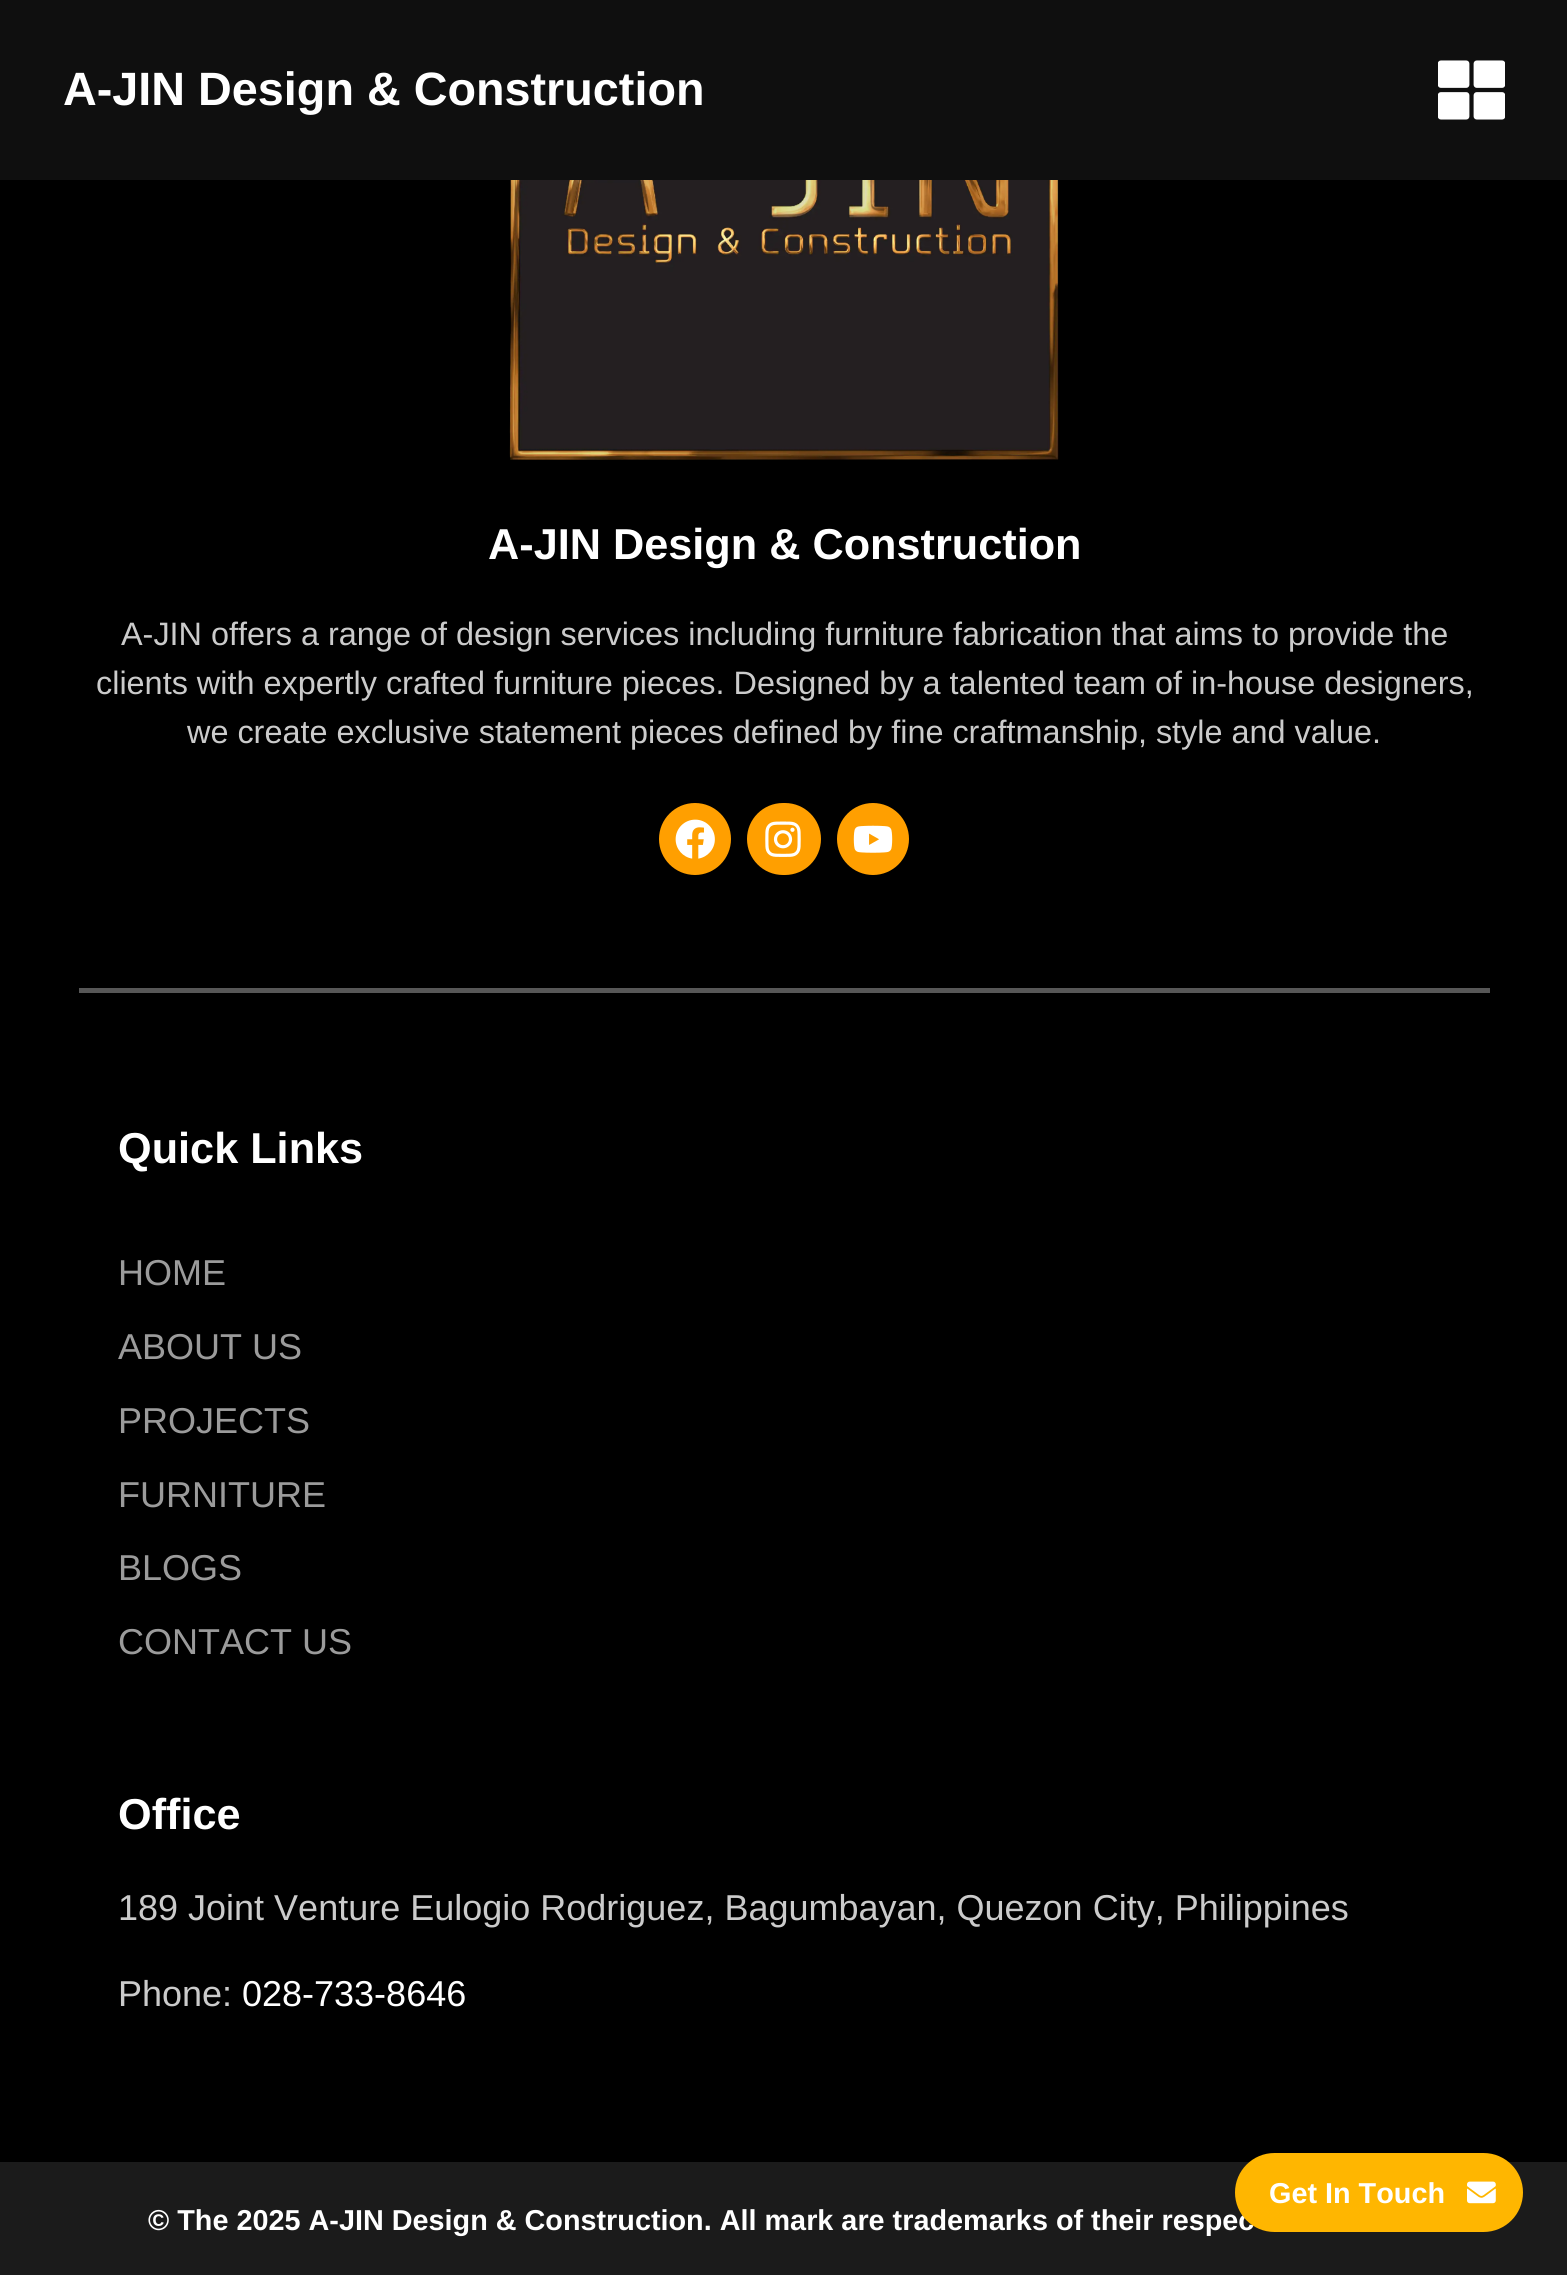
#include <cairo/cairo.h>
#include <math.h>
#include <stddef.h>

typedef struct { double x, y; const char *s; } line_t;
static cairo_t *cr;

static void rgb(unsigned color)
{
	cairo_set_source_rgb(cr, (color >> 16) / 255.0, (color >> 8 & 255) / 255.0, (color & 255) / 255.0);
}

static void rrect(double x, double y, double w, double h, double r)
{
	cairo_new_sub_path(cr);
	cairo_arc(cr, x + w - r, y + h - r, r, 0, M_PI / 2);
	cairo_arc(cr, x + r, y + h - r, r, M_PI / 2, M_PI);
	cairo_arc(cr, x + r, y + r, r, M_PI, 1.5 * M_PI);
	cairo_arc(cr, x + w - r, y + r, r, 1.5 * M_PI, 2 * M_PI);
	cairo_close_path(cr);
}

static void image(const char *path, double x, double y, double w, double h)
{
	cairo_surface_t *image = cairo_image_surface_create_from_png(path);
	cairo_save(cr);
	cairo_set_source_surface(cr, image, x, y);
	cairo_rectangle(cr, x, y, w, h);
	cairo_fill(cr);
	cairo_restore(cr);
	cairo_surface_destroy(image);
}

int main(void) {
	cairo_surface_t *surface = cairo_image_surface_create(CAIRO_FORMAT_RGB24, 1567, 2275);
	cr = cairo_create(surface);
	cairo_font_options_t *options = cairo_font_options_create();
	cairo_font_options_set_hint_metrics(options, CAIRO_HINT_METRICS_OFF);
	cairo_font_options_set_hint_style(options, CAIRO_HINT_STYLE_NONE);
	cairo_set_font_options(cr, options);
	cairo_set_miter_limit(cr, 4);
	rgb(0x000000);
	cairo_paint(cr);
	rgb(0x0f0f0f);
	cairo_rectangle(cr, 0, 0, 1567, 180);
	cairo_fill(cr);
	image("img/1.png", 1438, 60, 67, 60);
	image("img/3.png", 509, 180, 550, 280);
	rgb(0x575757);
	cairo_rectangle(cr, 79, 988, 1411, 5);
	cairo_fill(cr);
	rgb(0xff9f00);
	cairo_arc(cr, 695, 839, 36, 0, 2 * M_PI);
	cairo_fill(cr);
	image("img/4.png", 675, 819, 40, 40);
	rrect(747, 803, 74, 72, 36);
	cairo_fill(cr);
	image("img/5.png", 765, 821, 36, 36);
	cairo_arc(cr, 873, 839, 36, 0, 2 * M_PI);
	cairo_fill(cr);
	image("img/6.png", 853, 825, 40, 28);
	rgb(0x1b1b1b);
	cairo_rectangle(cr, 0, 2162, 1567, 113);
	cairo_fill(cr);
	cairo_select_font_face(cr, "Liberation Sans", CAIRO_FONT_SLANT_NORMAL, CAIRO_FONT_WEIGHT_BOLD);
	cairo_set_font_size(cr, 46.75);
	rgb(0xffffff);
	cairo_move_to(cr, 63, 105);
	cairo_show_text(cr, "A-JIN Design & Construction");
	cairo_set_font_size(cr, 43.25);
	cairo_move_to(cr, 488, 559);
	cairo_show_text(cr, "A-JIN Design & Construction");
	cairo_select_font_face(cr, "Liberation Sans", CAIRO_FONT_SLANT_NORMAL, CAIRO_FONT_WEIGHT_NORMAL);
	cairo_set_font_size(cr, 32.4);
	rgb(0xcbcbcb);
	{
		static const line_t items[] = {
			{121, 645, "A-JIN offers a range of design services including furniture fabrication that aims to provide the"},
			{96, 694, "clients with expertly crafted furniture pieces. Designed by a talented team of in-house designers,"},
			{187, 743, "we create exclusive statement pieces defined by fine craftmanship, style and value."},
		};
		for (size_t i = 0; i < sizeof items / sizeof *items; i++) {
			cairo_move_to(cr, items[i].x, items[i].y);
			cairo_show_text(cr, items[i].s);
		}
	}
	cairo_select_font_face(cr, "Liberation Sans", CAIRO_FONT_SLANT_NORMAL, CAIRO_FONT_WEIGHT_BOLD);
	cairo_set_font_size(cr, 43.25);
	rgb(0xffffff);
	cairo_move_to(cr, 118, 1163);
	cairo_show_text(cr, "Quick Links");
	cairo_select_font_face(cr, "Liberation Sans", CAIRO_FONT_SLANT_NORMAL, CAIRO_FONT_WEIGHT_NORMAL);
	cairo_set_font_size(cr, 36);
	rgb(0x9b9b9b);
	{
		static const line_t items[] = {
			{118, 1285, "HOME"},
			{118, 1359, "ABOUT US"},
			{118, 1433, "PROJECTS"},
			{118, 1507, "FURNITURE"},
			{118, 1580, "BLOGS"},
			{118, 1654, "CONTACT US"},
		};
		for (size_t i = 0; i < sizeof items / sizeof *items; i++) {
			cairo_move_to(cr, items[i].x, items[i].y);
			cairo_show_text(cr, items[i].s);
		}
	}
	cairo_select_font_face(cr, "Liberation Sans", CAIRO_FONT_SLANT_NORMAL, CAIRO_FONT_WEIGHT_BOLD);
	cairo_set_font_size(cr, 43.25);
	rgb(0xffffff);
	cairo_move_to(cr, 118, 1829);
	cairo_show_text(cr, "Office");
	cairo_select_font_face(cr, "Liberation Sans", CAIRO_FONT_SLANT_NORMAL, CAIRO_FONT_WEIGHT_NORMAL);
	cairo_set_font_size(cr, 36);
	rgb(0xcbcbcb);
	cairo_move_to(cr, 118, 1920);
	cairo_show_text(cr, "189 Joint Venture Eulogio Rodriguez, Bagumbayan, Quezon City, Philippines");
	cairo_move_to(cr, 118, 2006);
	cairo_show_text(cr, "Phone:");
	rgb(0xffffff);
	cairo_move_to(cr, 242, 2006);
	cairo_show_text(cr, "028-733-8646");
	cairo_select_font_face(cr, "Liberation Sans", CAIRO_FONT_SLANT_NORMAL, CAIRO_FONT_WEIGHT_BOLD);
	cairo_set_font_size(cr, 28.8);
	cairo_move_to(cr, 148, 2230);
	cairo_show_text(cr, "© The 2025 A-JIN Design & Construction. All mark are trademarks of their respec");
	rgb(0xffb600);
	rrect(1235, 2153, 288, 79, 39.5);
	cairo_fill(cr);
	image("img/2.png", 1467, 2181, 29, 23);
	rgb(0xffffff);
	cairo_move_to(cr, 1269, 2203);
	cairo_show_text(cr, "Get In Touch");
	cairo_surface_write_to_png(surface, "page.png");
	cairo_font_options_destroy(options);
	cairo_destroy(cr);
	cairo_surface_destroy(surface);
	return 0;
}
